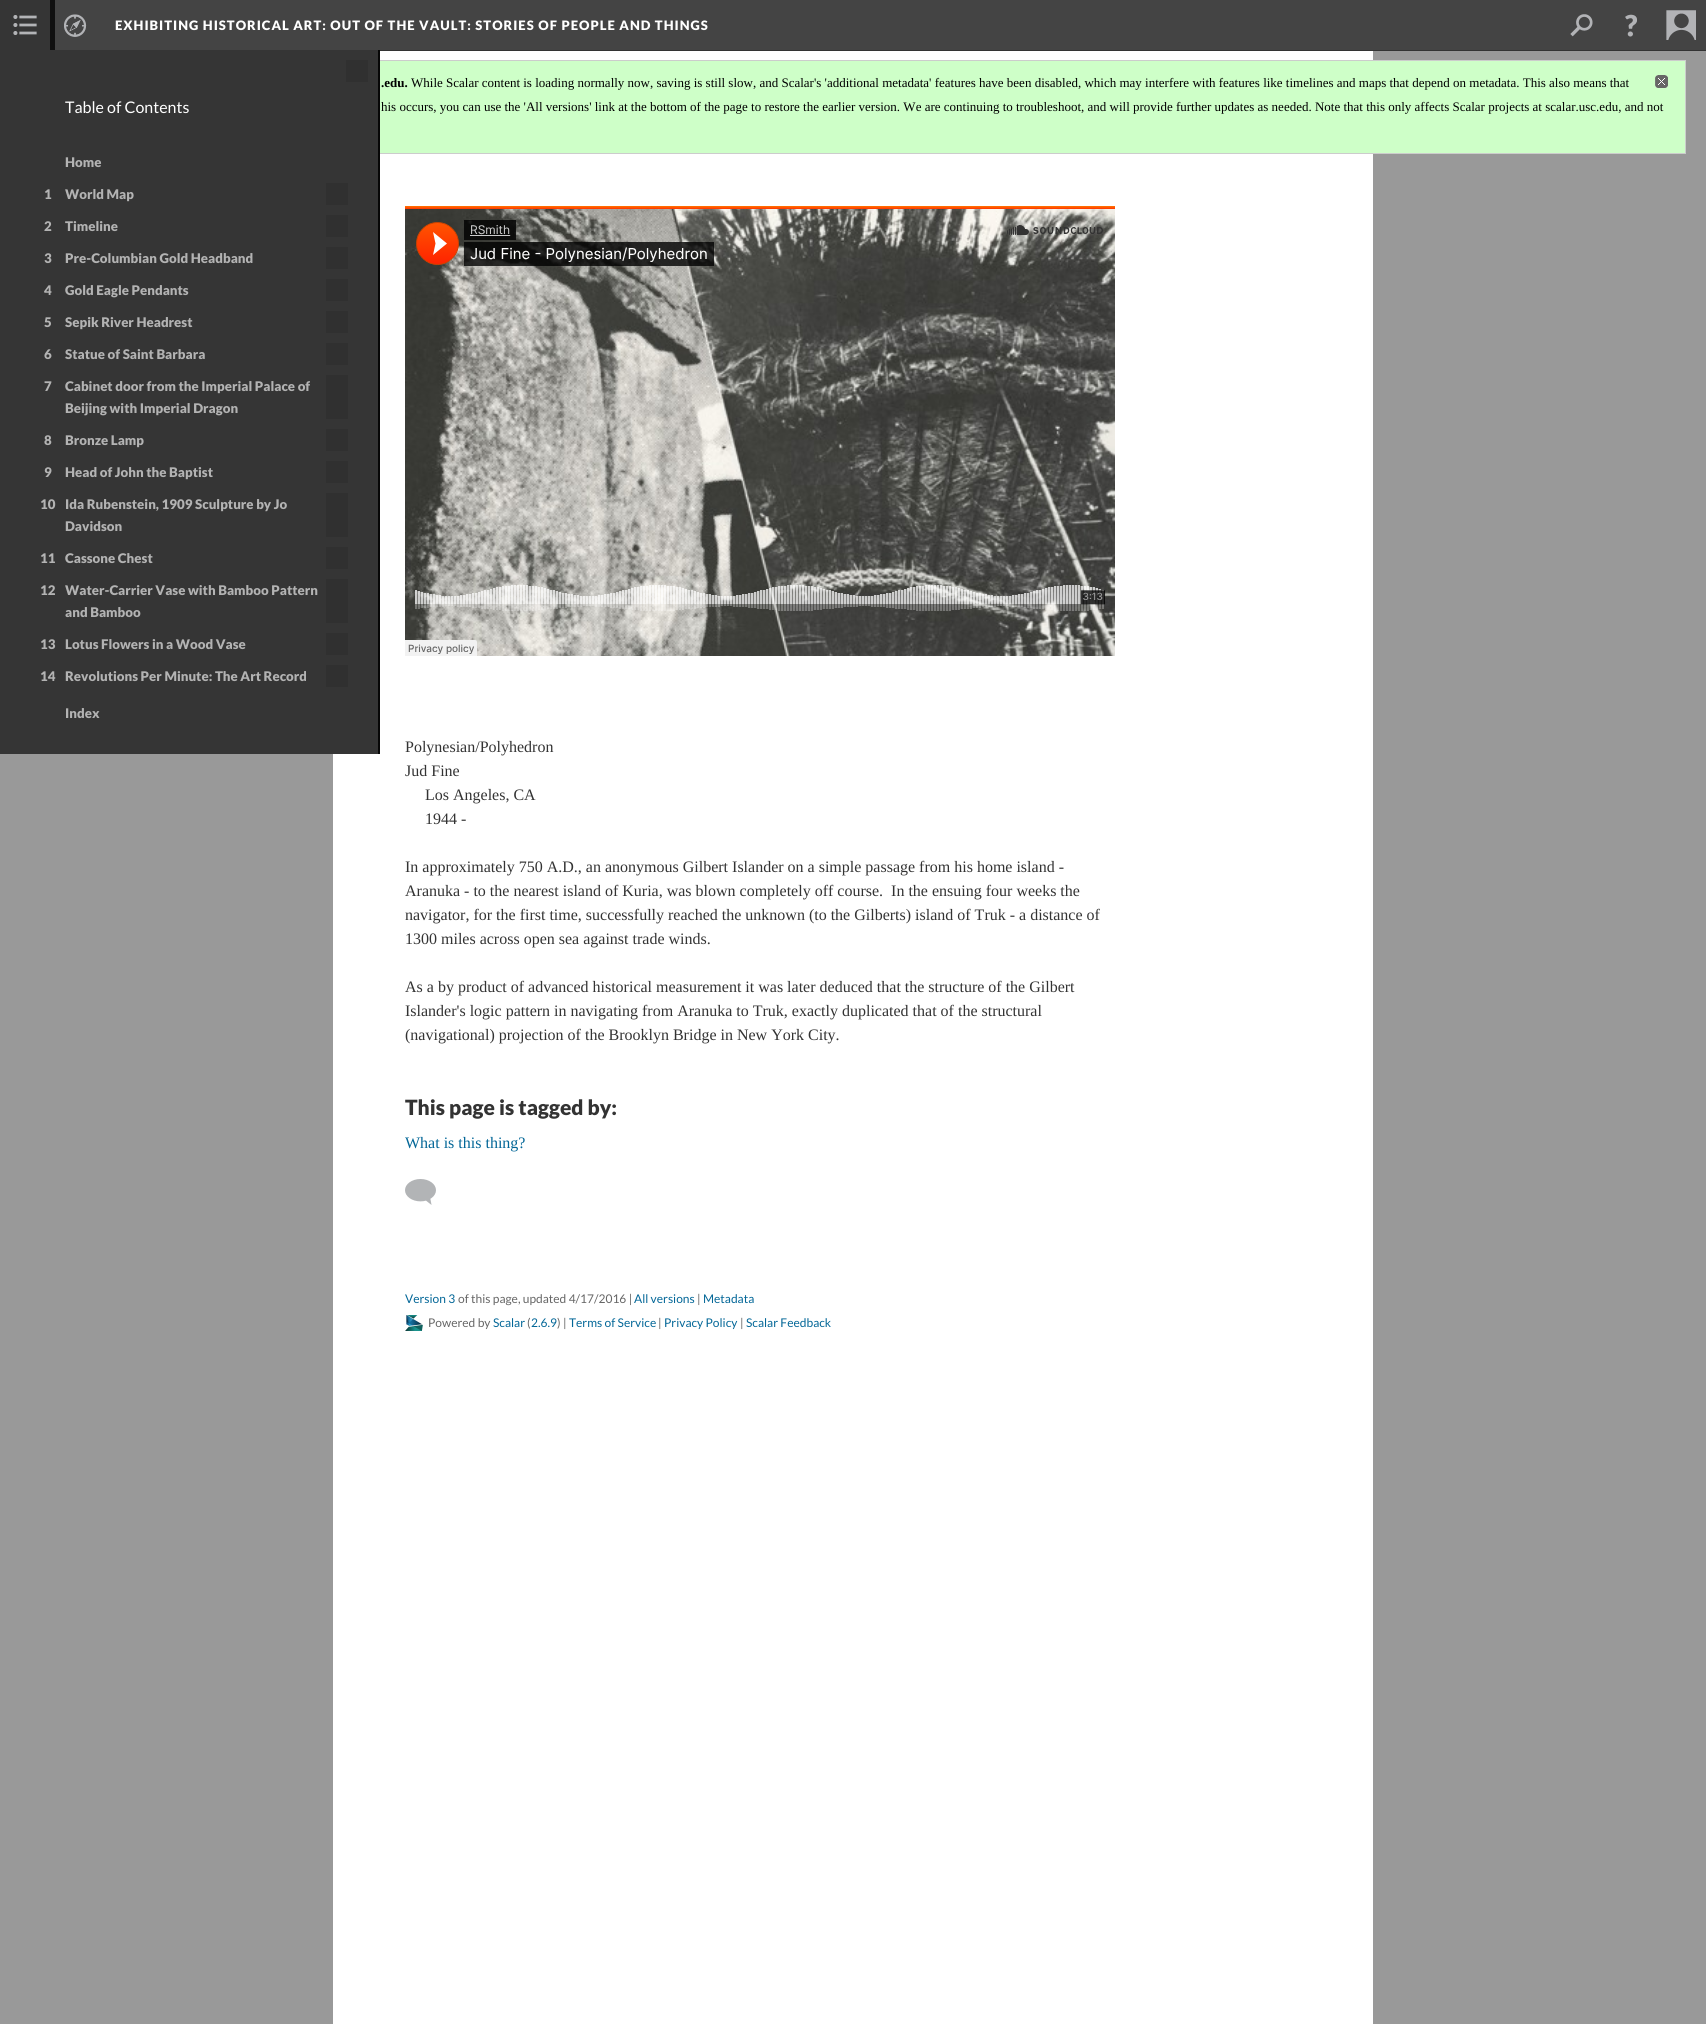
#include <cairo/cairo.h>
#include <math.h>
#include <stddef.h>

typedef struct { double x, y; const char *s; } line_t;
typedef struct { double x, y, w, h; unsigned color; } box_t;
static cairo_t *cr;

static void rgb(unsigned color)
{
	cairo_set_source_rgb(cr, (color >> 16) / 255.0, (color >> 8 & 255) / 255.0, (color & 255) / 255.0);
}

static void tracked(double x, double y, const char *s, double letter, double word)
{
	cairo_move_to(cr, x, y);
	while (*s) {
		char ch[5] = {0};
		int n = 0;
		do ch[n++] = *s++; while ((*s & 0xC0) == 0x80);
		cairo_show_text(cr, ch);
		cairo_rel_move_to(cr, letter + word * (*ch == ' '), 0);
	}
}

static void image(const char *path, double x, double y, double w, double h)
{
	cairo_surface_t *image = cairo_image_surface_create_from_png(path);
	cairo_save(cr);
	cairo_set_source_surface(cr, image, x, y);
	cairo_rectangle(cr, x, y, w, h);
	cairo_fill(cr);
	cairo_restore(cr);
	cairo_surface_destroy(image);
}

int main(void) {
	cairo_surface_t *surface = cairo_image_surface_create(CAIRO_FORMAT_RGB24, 1706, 2024);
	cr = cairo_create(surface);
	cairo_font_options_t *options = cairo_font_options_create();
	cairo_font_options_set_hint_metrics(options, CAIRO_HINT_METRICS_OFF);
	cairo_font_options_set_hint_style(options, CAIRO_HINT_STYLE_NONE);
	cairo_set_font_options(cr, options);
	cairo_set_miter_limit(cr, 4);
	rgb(0x999999);
	cairo_paint(cr);
	rgb(0x444444);
	cairo_rectangle(cr, 55, 0, 1651, 50);
	cairo_fill(cr);
	rgb(0x333333);
	cairo_rectangle(cr, 380, 50, 1326, 1);
	cairo_fill(cr);
	image("img/1.png", 1570, 14, 23, 23);
	image("img/2.png", 1625, 14, 12, 23);
	image("img/3.png", 1666, 10, 30, 30);
	image("img/4.png", 64, 14, 23, 23);
	rgb(0x353535);
	cairo_rectangle(cr, 0, 0, 50, 50);
	cairo_fill(cr);
	image("img/5.png", 13, 15, 24, 20);
	cairo_rectangle(cr, -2.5, -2.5, 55, 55);
	rgb(0x101010);
	cairo_set_line_width(cr, 5);
	cairo_stroke(cr);
	rgb(0xffffff);
	cairo_rectangle(cr, 333, 51, 1040, 1973);
	cairo_fill(cr);
	rgb(0xceffc8);
	cairo_rectangle(cr, 380, 61, 1305, 92);
	cairo_fill(cr);
	cairo_rectangle(cr, 10.5, 60.5, 1675, 93);
	rgb(0xcccccc);
	cairo_set_line_width(cr, 1);
	cairo_stroke(cr);
	{
		static const box_t items[] = {
			{0, 50, 378, 704, 0x353535},
			{378, 50, 2, 704, 0x070707},
			{346, 60, 22, 22, 0x303030},
			{326, 183, 22, 22, 0x303030},
			{326, 215, 22, 22, 0x303030},
			{326, 247, 22, 22, 0x303030},
			{326, 279, 22, 22, 0x303030},
			{326, 311, 22, 22, 0x303030},
			{326, 343, 22, 22, 0x303030},
			{326, 375, 22, 44, 0x303030},
			{326, 429, 22, 22, 0x303030},
			{326, 461, 22, 22, 0x303030},
			{326, 493, 22, 44, 0x303030},
			{326, 547, 22, 22, 0x303030},
			{326, 579, 22, 44, 0x303030},
			{326, 633, 22, 22, 0x303030},
			{326, 665, 22, 22, 0x303030},
		};
		for (size_t i = 0; i < sizeof items / sizeof *items; i++) {
			rgb(items[i].color);
			cairo_rectangle(cr, items[i].x, items[i].y, items[i].w, items[i].h);
			cairo_fill(cr);
		}
	}
	image("img/6.png", 1655, 75, 13, 13);
	image("img/7.png", 405, 206, 710, 450);
	image("img/8.png", 405, 1179, 31, 26);
	image("img/9.png", 405, 1315, 18, 16);
	cairo_select_font_face(cr, "Lato Black", CAIRO_FONT_SLANT_NORMAL, CAIRO_FONT_WEIGHT_NORMAL);
	cairo_set_font_size(cr, 13);
	rgb(0xffffff);
	tracked(115, 30, "EXHIBITING HISTORICAL ART: OUT OF THE VAULT: STORIES OF PEOPLE AND THINGS", 1, 0);
	cairo_select_font_face(cr, "Lato", CAIRO_FONT_SLANT_NORMAL, CAIRO_FONT_WEIGHT_NORMAL);
	cairo_set_font_size(cr, 16);
	cairo_move_to(cr, 65, 113);
	cairo_show_text(cr, "Table of Contents");
	cairo_select_font_face(cr, "Lato Black", CAIRO_FONT_SLANT_NORMAL, CAIRO_FONT_WEIGHT_NORMAL);
	cairo_set_font_size(cr, 13.3);
	rgb(0xb3b3b3);
	{
		static const line_t items[] = {
			{65, 167, "Home"},
			{44, 199, "1"},
			{65, 199, "World Map"},
			{44, 231, "2"},
			{65, 231, "Timeline"},
			{44, 263, "3"},
			{65, 263, "Pre-Columbian Gold Headband"},
			{44, 295, "4"},
			{65, 295, "Gold Eagle Pendants"},
			{44, 327, "5"},
			{65, 327, "Sepik River Headrest"},
			{44, 359, "6"},
			{65, 359, "Statue of Saint Barbara"},
			{44, 391, "7"},
			{65, 391, "Cabinet door from the Imperial Palace of"},
			{65, 413, "Beijing with Imperial Dragon"},
			{44, 445, "8"},
			{65, 445, "Bronze Lamp"},
			{44, 477, "9"},
			{65, 477, "Head of John the Baptist"},
			{40, 509, "10"},
			{65, 509, "Ida Rubenstein, 1909 Sculpture by Jo"},
			{65, 531, "Davidson"},
			{40, 563, "11"},
			{65, 563, "Cassone Chest"},
			{40, 595, "12"},
			{65, 595, "Water-Carrier Vase with Bamboo Pattern"},
			{65, 617, "and Bamboo"},
			{40, 649, "13"},
			{65, 649, "Lotus Flowers in a Wood Vase"},
			{40, 681, "14"},
			{65, 681, "Revolutions Per Minute: The Art Record"},
			{65, 718, "Index"},
		};
		for (size_t i = 0; i < sizeof items / sizeof *items; i++) {
			cairo_move_to(cr, items[i].x, items[i].y);
			cairo_show_text(cr, items[i].s);
		}
	}
	cairo_select_font_face(cr, "Liberation Serif", CAIRO_FONT_SLANT_NORMAL, CAIRO_FONT_WEIGHT_BOLD);
	cairo_set_font_size(cr, 13);
	rgb(0x000000);
	cairo_move_to(cr, 381, 87);
	cairo_show_text(cr, ".edu.");
	cairo_select_font_face(cr, "Liberation Serif", CAIRO_FONT_SLANT_NORMAL, CAIRO_FONT_WEIGHT_NORMAL);
	cairo_move_to(cr, 411, 87);
	cairo_show_text(cr, "While Scalar content is loading normally now, saving is still slow, and Scalar's 'additional metadata' features have been disabled, which may interfere with features like timelines and maps that depend on metadata. This also means that");
	cairo_move_to(cr, 381, 111);
	cairo_show_text(cr, "his occurs, you can use the 'All versions' link at the bottom of the page to restore the earlier version. We are continuing to troubleshoot, and will provide further updates as needed. Note that this only affects Scalar projects at scalar.usc.edu, and not");
	cairo_set_font_size(cr, 16);
	rgb(0x333333);
	{
		static const line_t items[] = {
			{405, 752, "Polynesian/Polyhedron"},
			{405, 776, "Jud Fine"},
			{425, 800, "Los Angeles, CA"},
			{425, 824, "1944 -"},
			{405, 872, "In approximately 750 A.D., an anonymous Gilbert Islander on a simple passage from his home island -"},
			{405, 896, "Aranuka - to the nearest island of Kuria, was blown completely off course.  In the ensuing four weeks the"},
			{405, 920, "navigator, for the first time, successfully reached the unknown (to the Gilberts) island of Truk - a distance of"},
			{405, 944, "1300 miles across open sea against trade winds."},
			{405, 992, "As a by product of advanced historical measurement it was later deduced that the structure of the Gilbert"},
			{405, 1016, "Islander's logic pattern in navigating from Aranuka to Truk, exactly duplicated that of the structural"},
			{405, 1040, "(navigational) projection of the Brooklyn Bridge in New York City."},
		};
		for (size_t i = 0; i < sizeof items / sizeof *items; i++) {
			cairo_move_to(cr, items[i].x, items[i].y);
			cairo_show_text(cr, items[i].s);
		}
	}
	cairo_select_font_face(cr, "Lato Black", CAIRO_FONT_SLANT_NORMAL, CAIRO_FONT_WEIGHT_NORMAL);
	cairo_set_font_size(cr, 21);
	cairo_move_to(cr, 405, 1115);
	cairo_show_text(cr, "This page is tagged by:");
	cairo_select_font_face(cr, "Liberation Serif", CAIRO_FONT_SLANT_NORMAL, CAIRO_FONT_WEIGHT_NORMAL);
	cairo_set_font_size(cr, 16);
	rgb(0x026697);
	cairo_move_to(cr, 405, 1148);
	cairo_show_text(cr, "What is this thing?");
	cairo_select_font_face(cr, "Lato", CAIRO_FONT_SLANT_NORMAL, CAIRO_FONT_WEIGHT_NORMAL);
	cairo_set_font_size(cr, 12);
	cairo_move_to(cr, 405, 1303);
	cairo_show_text(cr, "Version 3");
	rgb(0x666666);
	cairo_move_to(cr, 458, 1303);
	cairo_show_text(cr, "of this page, updated 4/17/2016 |");
	rgb(0x026697);
	cairo_move_to(cr, 634, 1303);
	cairo_show_text(cr, "All versions");
	rgb(0x666666);
	cairo_move_to(cr, 697, 1303);
	cairo_show_text(cr, "|");
	rgb(0x026697);
	cairo_move_to(cr, 703, 1303);
	cairo_show_text(cr, "Metadata");
	rgb(0x666666);
	cairo_move_to(cr, 428, 1327);
	cairo_show_text(cr, "Powered by");
	rgb(0x026697);
	cairo_move_to(cr, 493, 1327);
	cairo_show_text(cr, "Scalar");
	rgb(0x666666);
	cairo_move_to(cr, 527, 1327);
	cairo_show_text(cr, "(");
	rgb(0x026697);
	cairo_move_to(cr, 531, 1327);
	cairo_show_text(cr, "2.6.9");
	rgb(0x666666);
	cairo_move_to(cr, 557, 1327);
	cairo_show_text(cr, ") |");
	rgb(0x026697);
	cairo_move_to(cr, 569, 1327);
	cairo_show_text(cr, "Terms of Service");
	rgb(0x666666);
	cairo_move_to(cr, 658, 1327);
	cairo_show_text(cr, "|");
	rgb(0x026697);
	cairo_move_to(cr, 664, 1327);
	cairo_show_text(cr, "Privacy Policy");
	rgb(0x666666);
	cairo_move_to(cr, 740, 1327);
	cairo_show_text(cr, "|");
	rgb(0x026697);
	cairo_move_to(cr, 746, 1327);
	cairo_show_text(cr, "Scalar Feedback");
	cairo_surface_write_to_png(surface, "page.png");
	cairo_font_options_destroy(options);
	cairo_destroy(cr);
	cairo_surface_destroy(surface);
	return 0;
}
